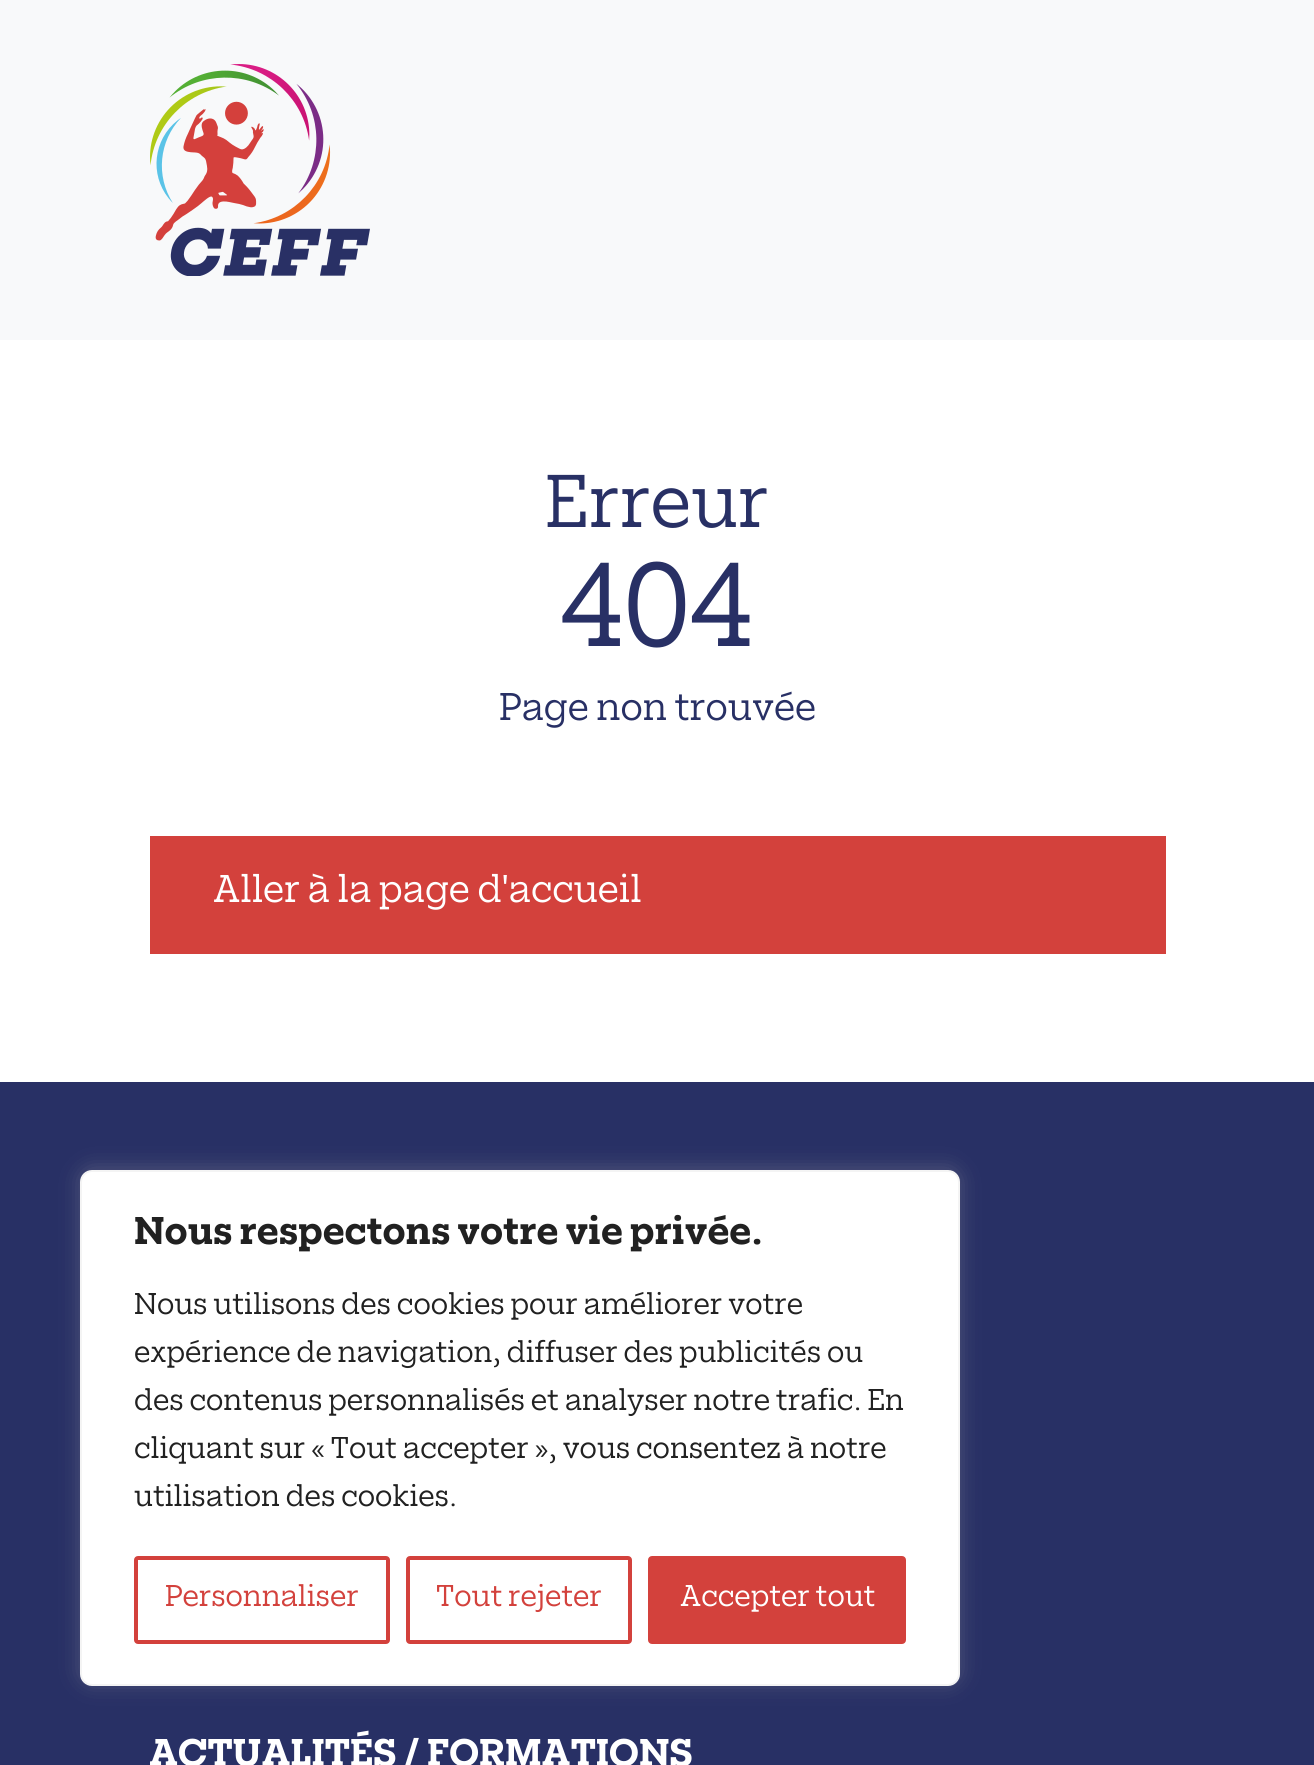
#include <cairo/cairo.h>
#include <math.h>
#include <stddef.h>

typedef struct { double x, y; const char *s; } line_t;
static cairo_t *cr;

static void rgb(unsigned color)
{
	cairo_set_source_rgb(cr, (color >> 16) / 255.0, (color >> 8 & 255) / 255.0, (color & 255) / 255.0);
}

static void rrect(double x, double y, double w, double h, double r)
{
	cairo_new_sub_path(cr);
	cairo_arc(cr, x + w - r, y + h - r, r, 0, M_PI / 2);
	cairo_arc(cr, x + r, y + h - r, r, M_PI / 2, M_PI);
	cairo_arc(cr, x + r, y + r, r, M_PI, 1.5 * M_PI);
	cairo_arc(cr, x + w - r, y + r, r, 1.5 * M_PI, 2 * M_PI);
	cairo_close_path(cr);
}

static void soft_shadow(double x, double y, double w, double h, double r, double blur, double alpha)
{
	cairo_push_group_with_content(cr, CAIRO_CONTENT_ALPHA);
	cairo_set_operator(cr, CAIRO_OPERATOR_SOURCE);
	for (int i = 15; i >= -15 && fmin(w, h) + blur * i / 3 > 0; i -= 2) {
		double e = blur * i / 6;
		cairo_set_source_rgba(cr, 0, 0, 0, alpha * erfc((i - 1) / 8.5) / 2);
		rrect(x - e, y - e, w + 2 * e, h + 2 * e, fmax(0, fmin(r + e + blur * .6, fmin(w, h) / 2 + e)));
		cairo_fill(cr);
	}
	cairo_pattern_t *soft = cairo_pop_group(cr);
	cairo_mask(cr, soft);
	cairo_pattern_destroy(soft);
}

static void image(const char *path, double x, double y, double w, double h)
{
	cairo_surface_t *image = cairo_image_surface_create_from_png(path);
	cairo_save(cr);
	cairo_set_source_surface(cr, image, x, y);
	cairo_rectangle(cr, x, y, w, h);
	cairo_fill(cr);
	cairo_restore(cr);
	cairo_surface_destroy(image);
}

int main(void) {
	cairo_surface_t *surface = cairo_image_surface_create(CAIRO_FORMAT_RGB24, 1314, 1765);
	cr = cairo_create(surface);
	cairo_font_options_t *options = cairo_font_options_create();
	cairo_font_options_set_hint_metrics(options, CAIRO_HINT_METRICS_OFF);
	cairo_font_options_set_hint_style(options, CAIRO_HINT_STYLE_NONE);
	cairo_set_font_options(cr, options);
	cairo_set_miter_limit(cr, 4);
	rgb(0xffffff);
	cairo_paint(cr);
	rgb(0xf8f9fa);
	cairo_rectangle(cr, 0, 0, 1314, 340);
	cairo_fill(cr);
	image("img/1.png", 150, 64, 220, 212);
	rgb(0xd3413c);
	cairo_rectangle(cr, 150, 836, 1016, 118);
	cairo_fill(cr);
	rgb(0x283065);
	cairo_rectangle(cr, 0, 1082, 1314, 683);
	cairo_fill(cr);
	rgb(0xacabab);
	soft_shadow(80, 1168, 880, 516, 12, 10, 0.3);
	rgb(0xffffff);
	rrect(81, 1171, 878, 514, 11);
	cairo_fill_preserve(cr);
	rgb(0xf4f4f4);
	cairo_stroke(cr);
	rrect(136, 1558, 252, 84, 2);
	rgb(0xd3413c);
	cairo_set_line_width(cr, 4);
	cairo_stroke(cr);
	rrect(408, 1558, 222, 84, 2);
	cairo_stroke(cr);
	rrect(650, 1558, 254, 84, 2);
	cairo_fill_preserve(cr);
	cairo_stroke(cr);
	cairo_select_font_face(cr, "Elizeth", CAIRO_FONT_SLANT_NORMAL, CAIRO_FONT_WEIGHT_NORMAL);
	cairo_set_font_size(cr, 69.5);
	rgb(0x283065);
	cairo_move_to(cr, 545, 527);
	cairo_show_text(cr, "Erreur");
	cairo_set_font_size(cr, 111);
	cairo_move_to(cr, 560, 646);
	cairo_show_text(cr, "404");
	cairo_set_font_size(cr, 36);
	cairo_move_to(cr, 499, 720);
	cairo_show_text(cr, "Page non trouvée");
	rgb(0xffffff);
	cairo_move_to(cr, 213, 902);
	cairo_show_text(cr, "Aller à la page d'accueil");
	cairo_select_font_face(cr, "Elizeth", CAIRO_FONT_SLANT_NORMAL, CAIRO_FONT_WEIGHT_BOLD);
	rgb(0x212121);
	cairo_move_to(cr, 134, 1244);
	cairo_show_text(cr, "Nous respectons votre vie privée.");
	cairo_select_font_face(cr, "Elizeth", CAIRO_FONT_SLANT_NORMAL, CAIRO_FONT_WEIGHT_NORMAL);
	cairo_set_font_size(cr, 28);
	{
		static const line_t items[] = {
			{134, 1314, "Nous utilisons des cookies pour améliorer votre"},
			{134, 1362, "expérience de navigation, diffuser des publicités ou"},
			{134, 1410, "des contenus personnalisés et analyser notre trafic. En"},
			{134, 1458, "cliquant sur « Tout accepter », vous consentez à notre"},
			{134, 1506, "utilisation des cookies."},
		};
		for (size_t i = 0; i < sizeof items / sizeof *items; i++) {
			cairo_move_to(cr, items[i].x, items[i].y);
			cairo_show_text(cr, items[i].s);
		}
	}
	rgb(0xd3413c);
	cairo_move_to(cr, 165, 1606);
	cairo_show_text(cr, "Personnaliser");
	cairo_move_to(cr, 436, 1606);
	cairo_show_text(cr, "Tout rejeter");
	rgb(0xffffff);
	cairo_move_to(cr, 680, 1606);
	cairo_show_text(cr, "Accepter tout");
	cairo_select_font_face(cr, "Elizeth", CAIRO_FONT_SLANT_NORMAL, CAIRO_FONT_WEIGHT_BOLD);
	cairo_set_font_size(cr, 36);
	cairo_move_to(cr, 149, 1766);
	cairo_show_text(cr, "ACTUALITÉS / FORMATIONS");
	cairo_surface_write_to_png(surface, "page.png");
	cairo_font_options_destroy(options);
	cairo_destroy(cr);
	cairo_surface_destroy(surface);
	return 0;
}
